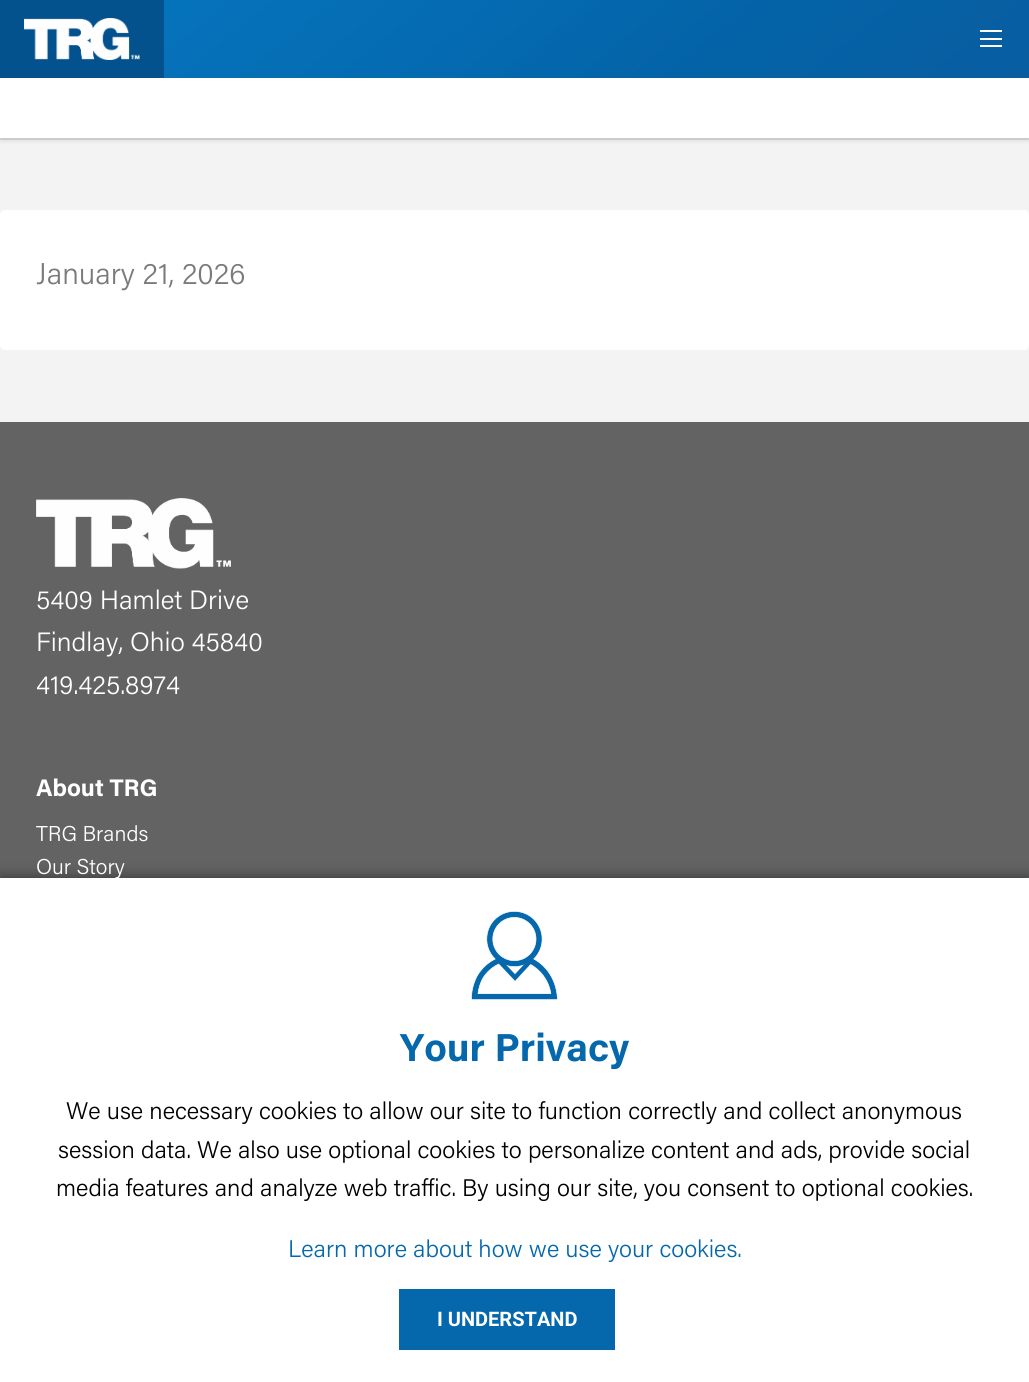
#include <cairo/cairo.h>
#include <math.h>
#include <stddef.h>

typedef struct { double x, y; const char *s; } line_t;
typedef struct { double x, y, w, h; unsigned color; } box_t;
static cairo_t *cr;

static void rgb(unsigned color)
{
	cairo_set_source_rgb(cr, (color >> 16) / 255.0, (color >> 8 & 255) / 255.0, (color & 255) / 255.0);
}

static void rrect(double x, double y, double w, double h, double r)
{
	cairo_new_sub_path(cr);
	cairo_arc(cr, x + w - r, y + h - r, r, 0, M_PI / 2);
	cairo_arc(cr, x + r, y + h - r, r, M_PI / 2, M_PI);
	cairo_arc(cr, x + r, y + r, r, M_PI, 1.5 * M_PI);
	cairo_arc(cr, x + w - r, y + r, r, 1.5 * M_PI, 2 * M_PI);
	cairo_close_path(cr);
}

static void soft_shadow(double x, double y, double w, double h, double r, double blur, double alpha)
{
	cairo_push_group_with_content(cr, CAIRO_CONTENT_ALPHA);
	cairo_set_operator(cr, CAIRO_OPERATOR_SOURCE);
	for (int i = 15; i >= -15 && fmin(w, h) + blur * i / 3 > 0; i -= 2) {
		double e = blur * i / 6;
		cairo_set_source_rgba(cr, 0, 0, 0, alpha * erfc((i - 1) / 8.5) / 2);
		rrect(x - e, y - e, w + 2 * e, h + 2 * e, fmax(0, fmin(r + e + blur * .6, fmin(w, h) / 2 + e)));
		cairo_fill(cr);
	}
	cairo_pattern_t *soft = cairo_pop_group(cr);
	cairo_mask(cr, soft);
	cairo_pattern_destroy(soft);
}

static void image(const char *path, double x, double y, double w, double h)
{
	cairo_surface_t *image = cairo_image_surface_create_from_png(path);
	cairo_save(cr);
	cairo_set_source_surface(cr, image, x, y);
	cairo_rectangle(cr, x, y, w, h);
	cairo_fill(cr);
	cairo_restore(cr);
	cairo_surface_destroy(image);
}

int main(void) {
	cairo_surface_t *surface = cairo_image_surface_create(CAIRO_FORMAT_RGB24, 1029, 1382);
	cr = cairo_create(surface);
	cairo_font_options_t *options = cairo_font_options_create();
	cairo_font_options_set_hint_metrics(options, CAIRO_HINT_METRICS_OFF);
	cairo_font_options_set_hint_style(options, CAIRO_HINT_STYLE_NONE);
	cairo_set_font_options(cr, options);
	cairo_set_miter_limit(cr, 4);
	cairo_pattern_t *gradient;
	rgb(0xf3f3f3);
	cairo_paint(cr);
	cairo_rectangle(cr, 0, 78, 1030, 61);
	rgb(0xdcdcdc);
	cairo_stroke(cr);
	rgb(0x0a0a0a);
	soft_shadow(0, 81, 1029, 60, 0, 2, 0.1);
	gradient = cairo_pattern_create_linear(292, -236, 737, 314);
	cairo_pattern_add_color_stop_rgba(gradient, 0, 0.016, 0.651, 0.843, 1);
	cairo_pattern_add_color_stop_rgba(gradient, 0.71, 0.125, 0.612, 0.933, 1);
	cairo_pattern_add_color_stop_rgba(gradient, 1, 0.196, 0.529, 0.961, 1);
	cairo_set_source(cr, gradient);
	cairo_pattern_destroy(gradient);
	cairo_rectangle(cr, 164, 0, 865, 78);
	cairo_fill(cr);
	rgb(0x03528e);
	cairo_rectangle(cr, 0, 0, 164, 78);
	cairo_fill(cr);
	image("img/1.png", 24, 18, 116, 42);
	gradient = cairo_pattern_create_linear(292, -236, 737, 314);
	cairo_pattern_add_color_stop_rgba(gradient, 0, 0.024, 0.443, 0.749, 0.87);
	cairo_pattern_add_color_stop_rgba(gradient, 0.71, 0, 0.353, 0.612, 0.87);
	cairo_pattern_add_color_stop_rgba(gradient, 1, 0.012, 0.341, 0.58, 0.87);
	cairo_set_source(cr, gradient);
	cairo_pattern_destroy(gradient);
	cairo_rectangle(cr, 164, 0, 865, 78);
	cairo_fill(cr);
	{
		static const box_t items[] = {
			{980, 30, 22, 2, 0xffffff},
			{980, 38, 22, 2, 0xffffff},
			{980, 45, 22, 2, 0xffffff},
			{0, 78, 1029, 60, 0xffffff},
		};
		for (size_t i = 0; i < sizeof items / sizeof *items; i++) {
			rgb(items[i].color);
			cairo_rectangle(cr, items[i].x, items[i].y, items[i].w, items[i].h);
			cairo_fill(cr);
		}
	}
	rrect(0, 210, 1029, 140, 5);
	cairo_fill(cr);
	rgb(0x636363);
	cairo_rectangle(cr, 0, 422, 1029, 456);
	cairo_fill(cr);
	image("img/2.png", 36, 498, 195, 71);
	rgb(0x000000);
	soft_shadow(0, 878, 1029, 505, 0, 7.5, 0.5);
	rgb(0xffffff);
	cairo_rectangle(cr, 0, 878, 1029, 504);
	cairo_fill(cr);
	image("img/3.png", 471, 911, 87, 89);
	rgb(0x0568ad);
	cairo_rectangle(cr, 399, 1289, 216, 61);
	cairo_fill(cr);
	cairo_select_font_face(cr, "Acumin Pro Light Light", CAIRO_FONT_SLANT_NORMAL, CAIRO_FONT_WEIGHT_NORMAL);
	cairo_set_font_size(cr, 30);
	rgb(0x7a7a7a);
	cairo_move_to(cr, 36, 284);
	cairo_show_text(cr, "January 21, 2026");
	cairo_set_font_size(cr, 26.5);
	rgb(0xffffff);
	{
		static const line_t items[] = {
			{36, 609, "5409 Hamlet Drive"},
			{36, 651, "Findlay, Ohio 45840"},
			{36, 694, "419.425.8974"},
		};
		for (size_t i = 0; i < sizeof items / sizeof *items; i++) {
			cairo_move_to(cr, items[i].x, items[i].y);
			cairo_show_text(cr, items[i].s);
		}
	}
	cairo_select_font_face(cr, "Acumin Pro", CAIRO_FONT_SLANT_NORMAL, CAIRO_FONT_WEIGHT_BOLD);
	cairo_set_font_size(cr, 24);
	cairo_move_to(cr, 36, 796);
	cairo_show_text(cr, "About TRG");
	cairo_select_font_face(cr, "Acumin Pro Light Light", CAIRO_FONT_SLANT_NORMAL, CAIRO_FONT_WEIGHT_NORMAL);
	cairo_set_font_size(cr, 21.5);
	cairo_move_to(cr, 36, 841);
	cairo_show_text(cr, "TRG Brands");
	cairo_move_to(cr, 36, 874);
	cairo_show_text(cr, "Our Story");
	cairo_select_font_face(cr, "Acumin Pro", CAIRO_FONT_SLANT_NORMAL, CAIRO_FONT_WEIGHT_BOLD);
	cairo_set_font_size(cr, 39);
	rgb(0x0568ad);
	cairo_move_to(cr, 400, 1061);
	cairo_show_text(cr, "Your Privacy");
	cairo_select_font_face(cr, "Acumin Pro Light Light", CAIRO_FONT_SLANT_NORMAL, CAIRO_FONT_WEIGHT_NORMAL);
	cairo_set_font_size(cr, 24);
	rgb(0x000000);
	{
		static const line_t items[] = {
			{66, 1119, "We use necessary cookies to allow our site to function correctly and collect anonymous"},
			{58, 1158, "session data. We also use optional cookies to personalize content and ads, provide social"},
			{56, 1196, "media features and analyze web traffic. By using our site, you consent to optional cookies."},
		};
		for (size_t i = 0; i < sizeof items / sizeof *items; i++) {
			cairo_move_to(cr, items[i].x, items[i].y);
			cairo_show_text(cr, items[i].s);
		}
	}
	rgb(0x0568ad);
	cairo_move_to(cr, 288, 1257);
	cairo_show_text(cr, "Learn more about how we use your cookies.");
	cairo_select_font_face(cr, "Roboto", CAIRO_FONT_SLANT_NORMAL, CAIRO_FONT_WEIGHT_BOLD);
	cairo_set_font_size(cr, 20);
	rgb(0xffffff);
	cairo_move_to(cr, 437, 1326);
	cairo_show_text(cr, "I UNDERSTAND");
	cairo_surface_write_to_png(surface, "page.png");
	cairo_font_options_destroy(options);
	cairo_destroy(cr);
	cairo_surface_destroy(surface);
	return 0;
}
